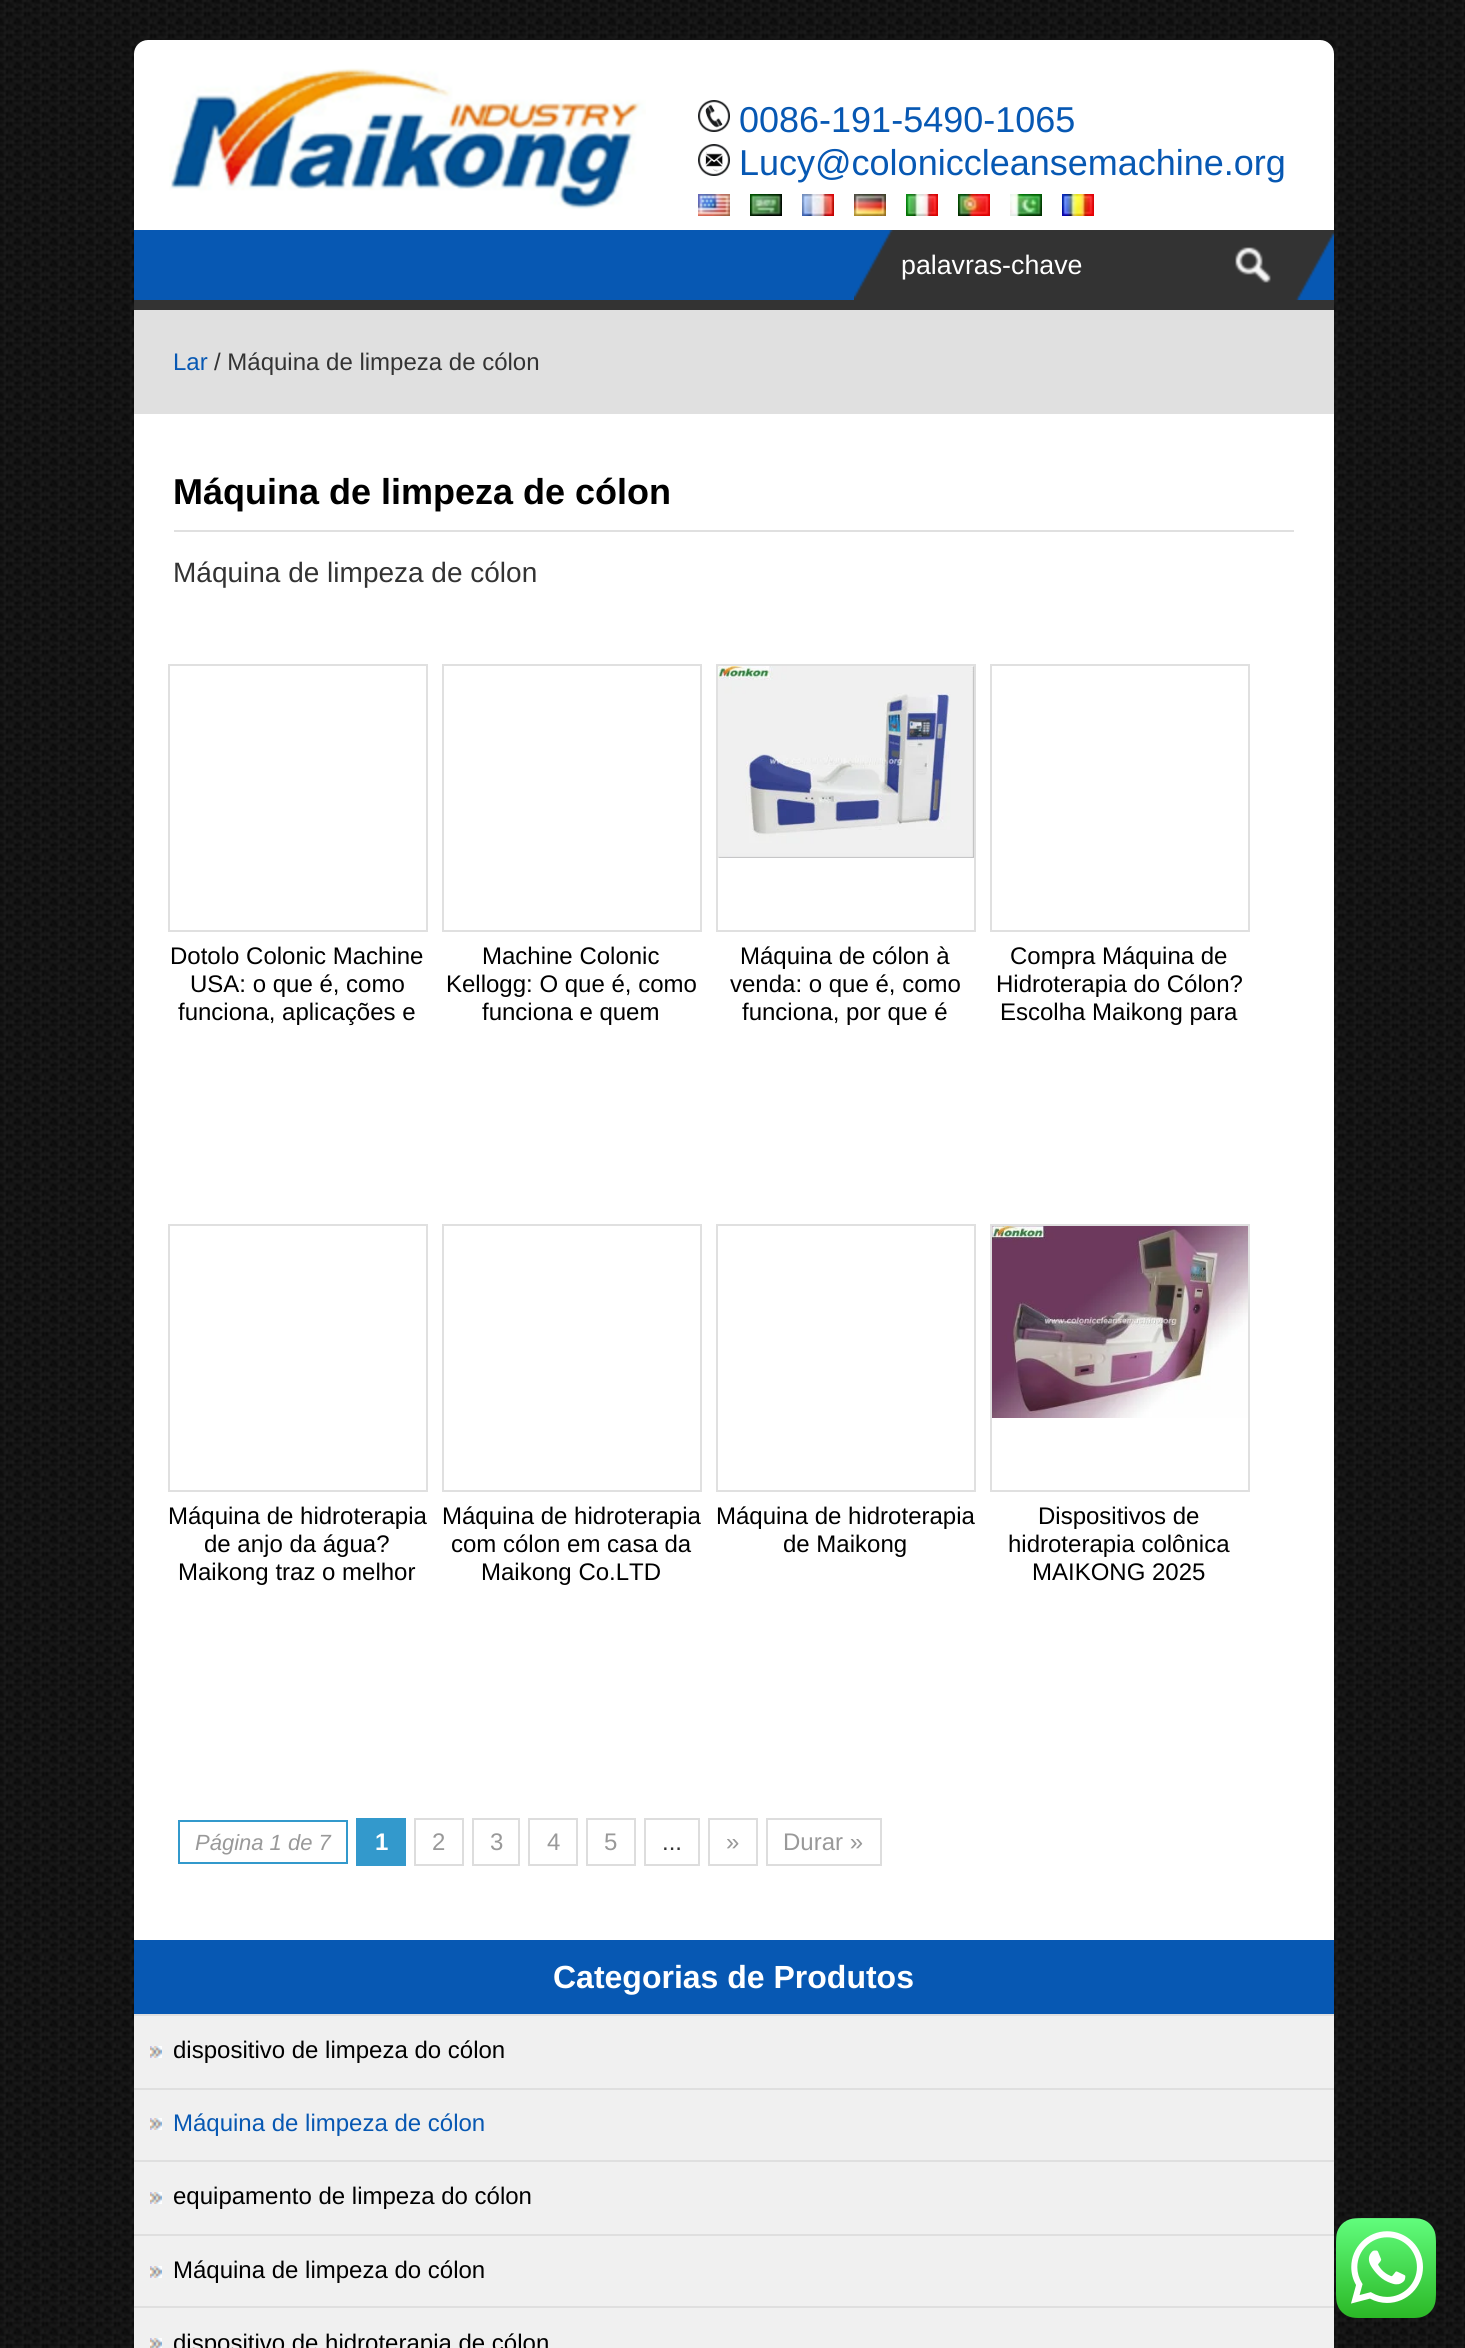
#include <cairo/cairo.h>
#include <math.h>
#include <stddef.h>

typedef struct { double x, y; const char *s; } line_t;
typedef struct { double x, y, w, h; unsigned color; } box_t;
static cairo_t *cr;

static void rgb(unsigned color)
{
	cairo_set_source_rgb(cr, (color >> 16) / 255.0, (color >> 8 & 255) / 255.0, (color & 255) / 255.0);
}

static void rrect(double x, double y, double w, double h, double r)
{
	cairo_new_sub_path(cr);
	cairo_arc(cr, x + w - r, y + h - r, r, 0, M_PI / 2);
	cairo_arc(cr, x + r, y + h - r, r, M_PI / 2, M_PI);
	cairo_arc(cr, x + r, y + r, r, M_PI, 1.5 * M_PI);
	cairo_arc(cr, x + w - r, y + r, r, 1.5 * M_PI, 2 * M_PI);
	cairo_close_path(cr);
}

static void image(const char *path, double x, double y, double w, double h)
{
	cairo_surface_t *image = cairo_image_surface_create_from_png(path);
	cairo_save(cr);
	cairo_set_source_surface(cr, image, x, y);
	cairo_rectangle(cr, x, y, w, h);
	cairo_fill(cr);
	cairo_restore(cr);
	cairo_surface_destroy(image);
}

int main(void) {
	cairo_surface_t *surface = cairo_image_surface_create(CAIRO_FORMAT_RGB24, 1465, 2348);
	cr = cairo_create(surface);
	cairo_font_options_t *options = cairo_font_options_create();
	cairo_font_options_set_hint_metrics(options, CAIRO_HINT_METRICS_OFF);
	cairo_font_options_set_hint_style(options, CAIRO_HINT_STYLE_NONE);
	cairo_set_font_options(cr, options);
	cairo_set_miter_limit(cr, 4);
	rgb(0xffffff);
	cairo_paint(cr);
	image("img/1.png", 0, 0, 1465, 2348);
	rgb(0xffffff);
	rrect(134, 40, 1200, 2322, 14);
	cairo_fill(cr);
	image("img/2.png", 169, 68, 477, 141);
	image("img/3.png", 698, 100, 32, 32);
	image("img/4.png", 698, 144, 32, 32);
	image("img/5.png", 698, 194, 32, 22);
	image("img/6.png", 750, 194, 32, 22);
	image("img/7.png", 802, 194, 32, 22);
	image("img/8.png", 854, 194, 32, 22);
	image("img/9.png", 906, 194, 32, 22);
	image("img/10.png", 958, 194, 32, 22);
	image("img/11.png", 1010, 194, 32, 22);
	image("img/12.png", 1062, 194, 32, 22);
	rgb(0x0758b3);
	cairo_rectangle(cr, 134, 230, 1200, 70);
	cairo_fill(cr);
	rgb(0x333333);
	cairo_rectangle(cr, 134, 300, 1200, 10);
	cairo_fill(cr);
	image("img/13.png", 854, 230, 480, 70);
	image("img/14.png", 1235, 247, 36, 36);
	rgb(0xe0e0e0);
	cairo_rectangle(cr, 134, 310, 1200, 104);
	cairo_fill(cr);
	cairo_rectangle(cr, 174, 530, 1120, 2);
	cairo_fill(cr);
	cairo_rectangle(cr, 169, 665, 258, 266);
	cairo_stroke(cr);
	cairo_rectangle(cr, 443, 665, 258, 266);
	cairo_stroke(cr);
	cairo_rectangle(cr, 717, 665, 258, 266);
	cairo_stroke(cr);
	image("img/15.png", 718, 666, 256, 192);
	cairo_rectangle(cr, 991, 665, 258, 266);
	cairo_stroke(cr);
	cairo_rectangle(cr, 169, 1225, 258, 266);
	cairo_stroke(cr);
	cairo_rectangle(cr, 443, 1225, 258, 266);
	cairo_stroke(cr);
	cairo_rectangle(cr, 717, 1225, 258, 266);
	cairo_stroke(cr);
	cairo_rectangle(cr, 991, 1225, 258, 266);
	cairo_stroke(cr);
	image("img/16.png", 992, 1226, 256, 192);
	cairo_rectangle(cr, 179, 1821, 168, 42);
	rgb(0x3399cc);
	cairo_stroke(cr);
	cairo_rectangle(cr, 356, 1818, 50, 48);
	cairo_fill(cr);
	cairo_rectangle(cr, 415, 1819, 48, 46);
	rgb(0xdddddd);
	cairo_stroke(cr);
	cairo_rectangle(cr, 473, 1819, 46, 46);
	cairo_stroke(cr);
	cairo_rectangle(cr, 529, 1819, 48, 46);
	cairo_stroke(cr);
	cairo_rectangle(cr, 587, 1819, 48, 46);
	cairo_stroke(cr);
	cairo_rectangle(cr, 645, 1819, 54, 46);
	cairo_stroke(cr);
	cairo_rectangle(cr, 709, 1819, 48, 46);
	cairo_stroke(cr);
	cairo_rectangle(cr, 767, 1819, 114, 46);
	cairo_stroke(cr);
	{
		static const box_t items[] = {
			{134, 2016, 1200, 332, 0xf0f0f0},
			{134, 1940, 1200, 74, 0x0758b3},
			{134, 2014, 1200, 2, 0xdfdfdf},
		};
		for (size_t i = 0; i < sizeof items / sizeof *items; i++) {
			rgb(items[i].color);
			cairo_rectangle(cr, items[i].x, items[i].y, items[i].w, items[i].h);
			cairo_fill(cr);
		}
	}
	image("img/17.png", 150, 2046, 12, 12);
	cairo_rectangle(cr, 134, 2088, 1200, 2);
	cairo_fill(cr);
	image("img/17.png", 150, 2118, 12, 12);
	cairo_rectangle(cr, 134, 2160, 1200, 2);
	cairo_fill(cr);
	image("img/17.png", 150, 2192, 12, 12);
	cairo_rectangle(cr, 134, 2234, 1200, 2);
	cairo_fill(cr);
	image("img/17.png", 150, 2266, 12, 12);
	cairo_rectangle(cr, 134, 2306, 1200, 2);
	cairo_fill(cr);
	image("img/18.png", 150, 2338, 12, 10);
	image("img/19.png", 1336, 2218, 100, 100);
	cairo_select_font_face(cr, "Liberation Sans", CAIRO_FONT_SLANT_NORMAL, CAIRO_FONT_WEIGHT_NORMAL);
	cairo_set_font_size(cr, 36);
	rgb(0x0758b3);
	cairo_move_to(cr, 739, 132);
	cairo_show_text(cr, "0086-191-5490-1065");
	cairo_move_to(cr, 739, 175);
	cairo_show_text(cr, "Lucy@coloniccleansemachine.org");
	cairo_set_font_size(cr, 26.75);
	rgb(0xffffff);
	cairo_move_to(cr, 901, 274);
	cairo_show_text(cr, "palavras-chave");
	cairo_set_font_size(cr, 24);
	rgb(0x0758b3);
	cairo_move_to(cr, 173, 370);
	cairo_show_text(cr, "Lar");
	rgb(0x333333);
	cairo_move_to(cr, 214, 370);
	cairo_show_text(cr, "/ Máquina de limpeza de cólon");
	cairo_select_font_face(cr, "Liberation Sans", CAIRO_FONT_SLANT_NORMAL, CAIRO_FONT_WEIGHT_BOLD);
	cairo_set_font_size(cr, 36);
	rgb(0x000000);
	cairo_move_to(cr, 173, 504);
	cairo_show_text(cr, "Máquina de limpeza de cólon");
	cairo_select_font_face(cr, "Liberation Sans", CAIRO_FONT_SLANT_NORMAL, CAIRO_FONT_WEIGHT_NORMAL);
	cairo_set_font_size(cr, 28);
	rgb(0x333333);
	cairo_move_to(cr, 173, 582);
	cairo_show_text(cr, "Máquina de limpeza de cólon");
	cairo_set_font_size(cr, 24);
	rgb(0x000000);
	{
		static const line_t items[] = {
			{170, 964, "Dotolo Colonic Machine"},
			{190, 992, "USA: o que é, como"},
			{178, 1020, "funciona, aplicações e"},
			{482, 964, "Machine Colonic"},
			{446, 992, "Kellogg: O que é, como"},
			{482, 1020, "funciona e quem"},
			{740, 964, "Máquina de cólon à"},
			{730, 992, "venda: o que é, como"},
			{742, 1020, "funciona, por que é"},
			{1010, 964, "Compra Máquina de"},
			{996, 992, "Hidroterapia do Cólon?"},
			{1000, 1020, "Escolha Maikong para"},
			{168, 1524, "Máquina de hidroterapia"},
			{204, 1552, "de anjo da água?"},
			{178, 1580, "Maikong traz o melhor"},
			{442, 1524, "Máquina de hidroterapia"},
			{451, 1552, "com cólon em casa da"},
			{481, 1580, "Maikong Co.LTD"},
			{716, 1524, "Máquina de hidroterapia"},
			{783, 1552, "de Maikong"},
			{1038, 1524, "Dispositivos de"},
			{1008, 1552, "hidroterapia colônica"},
			{1032, 1580, "MAIKONG 2025"},
		};
		for (size_t i = 0; i < sizeof items / sizeof *items; i++) {
			cairo_move_to(cr, items[i].x, items[i].y);
			cairo_show_text(cr, items[i].s);
		}
	}
	cairo_select_font_face(cr, "Liberation Sans", CAIRO_FONT_SLANT_ITALIC, CAIRO_FONT_WEIGHT_NORMAL);
	cairo_set_font_size(cr, 22);
	rgb(0x999999);
	cairo_move_to(cr, 195, 1850);
	cairo_show_text(cr, "Página 1 de 7");
	cairo_select_font_face(cr, "Liberation Sans", CAIRO_FONT_SLANT_NORMAL, CAIRO_FONT_WEIGHT_BOLD);
	cairo_set_font_size(cr, 24);
	rgb(0xffffff);
	cairo_move_to(cr, 375, 1850);
	cairo_show_text(cr, "1");
	cairo_select_font_face(cr, "Liberation Sans", CAIRO_FONT_SLANT_NORMAL, CAIRO_FONT_WEIGHT_NORMAL);
	rgb(0x999999);
	{
		static const line_t items[] = {
			{432, 1850, "2"},
			{490, 1850, "3"},
			{547, 1850, "4"},
			{604, 1850, "5"},
		};
		for (size_t i = 0; i < sizeof items / sizeof *items; i++) {
			cairo_move_to(cr, items[i].x, items[i].y);
			cairo_show_text(cr, items[i].s);
		}
	}
	rgb(0x333333);
	cairo_move_to(cr, 662, 1850);
	cairo_show_text(cr, "...");
	rgb(0x999999);
	cairo_move_to(cr, 726, 1850);
	cairo_show_text(cr, "»");
	cairo_move_to(cr, 783, 1850);
	cairo_show_text(cr, "Durar »");
	cairo_select_font_face(cr, "Liberation Sans", CAIRO_FONT_SLANT_NORMAL, CAIRO_FONT_WEIGHT_BOLD);
	cairo_set_font_size(cr, 32);
	rgb(0xffffff);
	cairo_move_to(cr, 553, 1988);
	cairo_show_text(cr, "Categorias de Produtos");
	cairo_select_font_face(cr, "Liberation Sans", CAIRO_FONT_SLANT_NORMAL, CAIRO_FONT_WEIGHT_NORMAL);
	cairo_set_font_size(cr, 24);
	rgb(0x000000);
	cairo_move_to(cr, 173, 2058);
	cairo_show_text(cr, "dispositivo de limpeza do cólon");
	rgb(0x0758b3);
	cairo_move_to(cr, 173, 2131);
	cairo_show_text(cr, "Máquina de limpeza de cólon");
	rgb(0x000000);
	{
		static const line_t items[] = {
			{173, 2204, "equipamento de limpeza do cólon"},
			{173, 2278, "Máquina de limpeza do cólon"},
			{173, 2351, "dispositivo de hidroterapia de cólon"},
		};
		for (size_t i = 0; i < sizeof items / sizeof *items; i++) {
			cairo_move_to(cr, items[i].x, items[i].y);
			cairo_show_text(cr, items[i].s);
		}
	}
	cairo_surface_write_to_png(surface, "page.png");
	cairo_font_options_destroy(options);
	cairo_destroy(cr);
	cairo_surface_destroy(surface);
	return 0;
}
